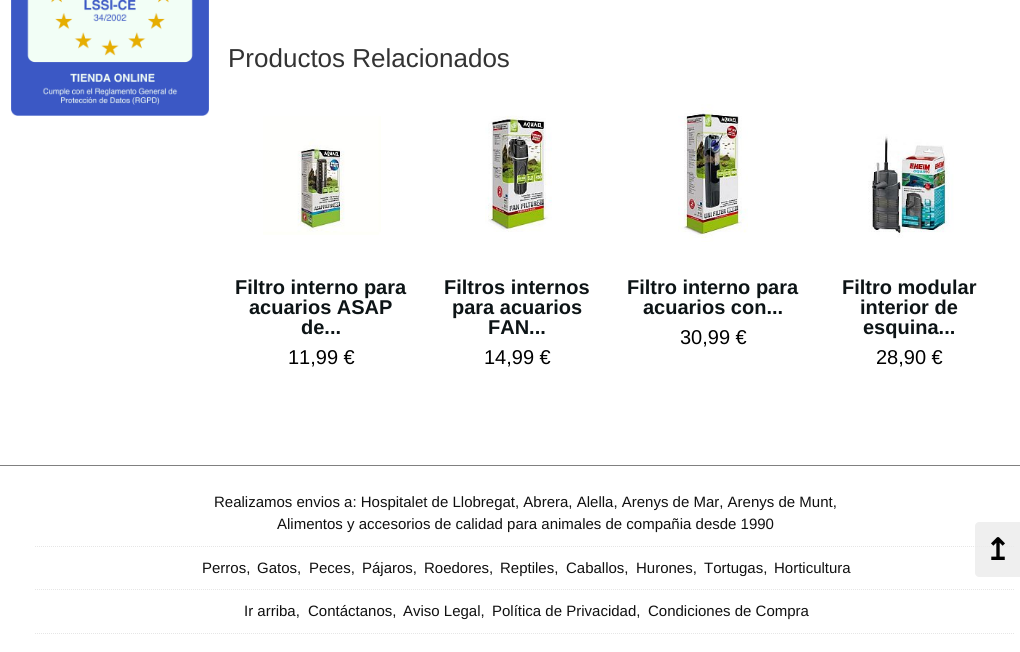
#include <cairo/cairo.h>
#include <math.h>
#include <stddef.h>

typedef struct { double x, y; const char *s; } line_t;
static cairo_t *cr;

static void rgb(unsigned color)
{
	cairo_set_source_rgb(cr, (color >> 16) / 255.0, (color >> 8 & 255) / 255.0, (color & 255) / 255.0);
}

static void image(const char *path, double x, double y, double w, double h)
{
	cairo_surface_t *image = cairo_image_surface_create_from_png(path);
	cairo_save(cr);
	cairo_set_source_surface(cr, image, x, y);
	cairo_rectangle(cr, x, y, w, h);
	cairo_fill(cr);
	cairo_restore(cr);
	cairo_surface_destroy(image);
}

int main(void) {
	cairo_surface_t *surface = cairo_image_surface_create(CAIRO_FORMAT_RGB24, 1020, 652);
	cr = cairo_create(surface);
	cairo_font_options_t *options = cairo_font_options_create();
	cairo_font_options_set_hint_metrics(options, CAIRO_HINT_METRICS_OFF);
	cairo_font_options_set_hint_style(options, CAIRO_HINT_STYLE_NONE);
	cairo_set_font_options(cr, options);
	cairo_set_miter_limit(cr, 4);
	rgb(0xffffff);
	cairo_paint(cr);
	image("img/1.png", 11, 0, 198, 116);
	image("img/2.png", 263, 116, 118, 119);
	image("img/3.png", 485, 115, 67, 117);
	image("img/4.png", 678, 104, 70, 138);
	image("img/5.png", 868, 134, 86, 104);
	rgb(0x808080);
	cairo_rectangle(cr, 0, 465, 1020, 1);
	cairo_fill(cr);
	cairo_new_path(cr);
	cairo_move_to(cr, 35, 546.5);
	cairo_line_to(cr, 1015, 546.5);
	rgb(0xe6e6e6);
	cairo_set_line_width(cr, 1);
	cairo_set_dash(cr, (double[]){1, 1}, 2, 0);
	cairo_stroke(cr);
	cairo_new_path(cr);
	cairo_move_to(cr, 35, 589.5);
	cairo_line_to(cr, 1015, 589.5);
	cairo_stroke(cr);
	cairo_new_path(cr);
	cairo_move_to(cr, 35, 633.5);
	cairo_line_to(cr, 1015, 633.5);
	cairo_stroke(cr);
	cairo_set_source_rgba(cr, 0.922, 0.922, 0.922, 0.8);
	cairo_new_path(cr);
	cairo_move_to(cr, 979, 522);
	cairo_line_to(cr, 1020, 522);
	cairo_line_to(cr, 1020, 577);
	cairo_line_to(cr, 979, 577);
	cairo_curve_to(cr, 977, 577, 975, 575, 975, 573);
	cairo_line_to(cr, 975, 526);
	cairo_curve_to(cr, 975, 524, 977, 522, 979, 522);
	cairo_close_path(cr);
	cairo_fill(cr);
	cairo_select_font_face(cr, "Liberation Sans", CAIRO_FONT_SLANT_NORMAL, CAIRO_FONT_WEIGHT_NORMAL);
	cairo_set_font_size(cr, 26);
	rgb(0x333333);
	cairo_move_to(cr, 228, 67);
	cairo_show_text(cr, "Productos Relacionados");
	cairo_select_font_face(cr, "Liberation Sans", CAIRO_FONT_SLANT_NORMAL, CAIRO_FONT_WEIGHT_BOLD);
	cairo_set_font_size(cr, 20);
	rgb(0x0d1416);
	{
		static const line_t items[] = {
			{235, 294, "Filtro interno para"},
			{249, 314, "acuarios ASAP"},
			{301, 334, "de..."},
		};
		for (size_t i = 0; i < sizeof items / sizeof *items; i++) {
			cairo_move_to(cr, items[i].x, items[i].y);
			cairo_show_text(cr, items[i].s);
		}
	}
	cairo_select_font_face(cr, "Liberation Sans", CAIRO_FONT_SLANT_NORMAL, CAIRO_FONT_WEIGHT_NORMAL);
	rgb(0x000000);
	cairo_move_to(cr, 288, 364);
	cairo_show_text(cr, "11,99 €");
	cairo_select_font_face(cr, "Liberation Sans", CAIRO_FONT_SLANT_NORMAL, CAIRO_FONT_WEIGHT_BOLD);
	rgb(0x0d1416);
	{
		static const line_t items[] = {
			{444, 294, "Filtros internos"},
			{452, 314, "para acuarios"},
			{488, 334, "FAN..."},
		};
		for (size_t i = 0; i < sizeof items / sizeof *items; i++) {
			cairo_move_to(cr, items[i].x, items[i].y);
			cairo_show_text(cr, items[i].s);
		}
	}
	cairo_select_font_face(cr, "Liberation Sans", CAIRO_FONT_SLANT_NORMAL, CAIRO_FONT_WEIGHT_NORMAL);
	rgb(0x000000);
	cairo_move_to(cr, 484, 364);
	cairo_show_text(cr, "14,99 €");
	cairo_select_font_face(cr, "Liberation Sans", CAIRO_FONT_SLANT_NORMAL, CAIRO_FONT_WEIGHT_BOLD);
	rgb(0x0d1416);
	cairo_move_to(cr, 627, 294);
	cairo_show_text(cr, "Filtro interno para");
	cairo_move_to(cr, 643, 314);
	cairo_show_text(cr, "acuarios con...");
	cairo_select_font_face(cr, "Liberation Sans", CAIRO_FONT_SLANT_NORMAL, CAIRO_FONT_WEIGHT_NORMAL);
	rgb(0x000000);
	cairo_move_to(cr, 680, 344);
	cairo_show_text(cr, "30,99 €");
	cairo_select_font_face(cr, "Liberation Sans", CAIRO_FONT_SLANT_NORMAL, CAIRO_FONT_WEIGHT_BOLD);
	rgb(0x0d1416);
	{
		static const line_t items[] = {
			{842, 294, "Filtro modular"},
			{860, 314, "interior de"},
			{863, 334, "esquina..."},
		};
		for (size_t i = 0; i < sizeof items / sizeof *items; i++) {
			cairo_move_to(cr, items[i].x, items[i].y);
			cairo_show_text(cr, items[i].s);
		}
	}
	cairo_select_font_face(cr, "Liberation Sans", CAIRO_FONT_SLANT_NORMAL, CAIRO_FONT_WEIGHT_NORMAL);
	rgb(0x000000);
	cairo_move_to(cr, 876, 364);
	cairo_show_text(cr, "28,90 €");
	cairo_set_font_size(cr, 15);
	rgb(0x101010);
	{
		static const line_t items[] = {
			{214, 507, "Realizamos envios a: Hospitalet de Llobregat, Abrera, Alella, Arenys de Mar, Arenys de Munt,"},
			{277, 529, "Alimentos y accesorios de calidad para animales de compañia desde 1990"},
			{202, 573, "Perros,"},
			{257, 573, "Gatos,"},
			{309, 573, "Peces,"},
			{362, 573, "Pájaros,"},
			{424, 573, "Roedores,"},
			{500, 573, "Reptiles,"},
			{566, 573, "Caballos,"},
			{636, 573, "Hurones,"},
			{704, 573, "Tortugas,"},
			{774, 573, "Horticultura"},
			{244, 616, "Ir arriba,"},
			{308, 616, "Contáctanos,"},
			{403, 616, "Aviso Legal,"},
			{492, 616, "Política de Privacidad,"},
			{648, 616, "Condiciones de Compra"},
		};
		for (size_t i = 0; i < sizeof items / sizeof *items; i++) {
			cairo_move_to(cr, items[i].x, items[i].y);
			cairo_show_text(cr, items[i].s);
		}
	}
	cairo_select_font_face(cr, "DejaVu Sans", CAIRO_FONT_SLANT_NORMAL, CAIRO_FONT_WEIGHT_BOLD);
	cairo_set_font_size(cr, 30);
	rgb(0x000000);
	cairo_move_to(cr, 985, 560);
	cairo_show_text(cr, "↥");
	cairo_surface_write_to_png(surface, "page.png");
	cairo_font_options_destroy(options);
	cairo_destroy(cr);
	cairo_surface_destroy(surface);
	return 0;
}
